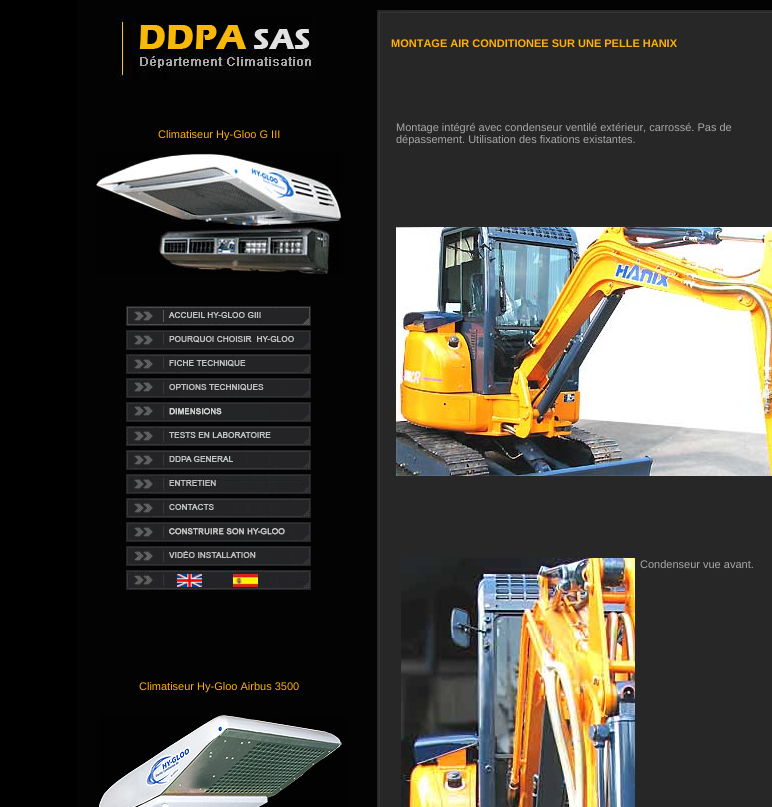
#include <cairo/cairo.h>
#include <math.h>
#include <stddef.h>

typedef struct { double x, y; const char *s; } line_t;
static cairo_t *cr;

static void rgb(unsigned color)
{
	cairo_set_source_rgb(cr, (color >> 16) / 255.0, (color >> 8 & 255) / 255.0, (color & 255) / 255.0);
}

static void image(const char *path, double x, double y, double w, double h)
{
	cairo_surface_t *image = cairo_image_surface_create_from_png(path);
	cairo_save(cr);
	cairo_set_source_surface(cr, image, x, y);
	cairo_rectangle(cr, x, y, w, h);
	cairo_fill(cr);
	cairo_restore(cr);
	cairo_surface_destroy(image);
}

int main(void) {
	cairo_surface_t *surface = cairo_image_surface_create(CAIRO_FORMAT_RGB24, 772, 807);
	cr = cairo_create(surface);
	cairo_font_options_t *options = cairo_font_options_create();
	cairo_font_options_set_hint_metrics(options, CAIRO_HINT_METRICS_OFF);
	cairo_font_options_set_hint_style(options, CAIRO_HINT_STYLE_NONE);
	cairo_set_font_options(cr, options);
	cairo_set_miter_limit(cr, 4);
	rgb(0x000000);
	cairo_paint(cr);
	rgb(0x030303);
	cairo_rectangle(cr, 77, 0, 695, 807);
	cairo_fill(cr);
	image("img/1.png", 116, 16, 200, 64);
	image("img/2.png", 95, 152, 247, 123);
	image("img/3.png", 126, 306, 185, 20);
	image("img/4.png", 126, 330, 185, 20);
	image("img/5.png", 126, 354, 185, 20);
	image("img/6.png", 126, 378, 185, 20);
	image("img/7.png", 126, 402, 185, 20);
	image("img/8.png", 126, 426, 185, 20);
	image("img/9.png", 126, 450, 185, 20);
	image("img/10.png", 126, 474, 185, 22);
	image("img/11.png", 126, 498, 185, 20);
	image("img/12.png", 126, 522, 185, 20);
	image("img/13.png", 126, 546, 185, 20);
	image("img/14.png", 126, 570, 185, 22);
	image("img/15.png", 99, 715, 247, 92);
	image("img/16.png", 377, 10, 395, 16);
	image("img/17.png", 377, 26, 395, 781);
	image("img/18.png", 396, 227, 376, 249);
	image("img/19.png", 401, 558, 234, 249);
	cairo_select_font_face(cr, "Liberation Sans", CAIRO_FONT_SLANT_NORMAL, CAIRO_FONT_WEIGHT_NORMAL);
	cairo_set_font_size(cr, 11);
	rgb(0xffb00b);
	cairo_move_to(cr, 158, 138);
	cairo_show_text(cr, "Climatiseur Hy-Gloo G III");
	cairo_move_to(cr, 139, 690);
	cairo_show_text(cr, "Climatiseur Hy-Gloo Airbus 3500");
	cairo_select_font_face(cr, "Liberation Sans", CAIRO_FONT_SLANT_NORMAL, CAIRO_FONT_WEIGHT_BOLD);
	cairo_move_to(cr, 391, 47);
	cairo_show_text(cr, "MONTAGE AIR CONDITIONEE SUR UNE PELLE HANIX");
	cairo_select_font_face(cr, "Liberation Sans", CAIRO_FONT_SLANT_NORMAL, CAIRO_FONT_WEIGHT_NORMAL);
	rgb(0xa8a7a7);
	{
		static const line_t items[] = {
			{396, 131, "Montage intégré avec condenseur ventilé extérieur, carrossé. Pas de"},
			{396, 143, "dépassement. Utilisation des fixations existantes."},
			{640, 568, "Condenseur vue avant."},
		};
		for (size_t i = 0; i < sizeof items / sizeof *items; i++) {
			cairo_move_to(cr, items[i].x, items[i].y);
			cairo_show_text(cr, items[i].s);
		}
	}
	cairo_surface_write_to_png(surface, "page.png");
	cairo_font_options_destroy(options);
	cairo_destroy(cr);
	cairo_surface_destroy(surface);
	return 0;
}
